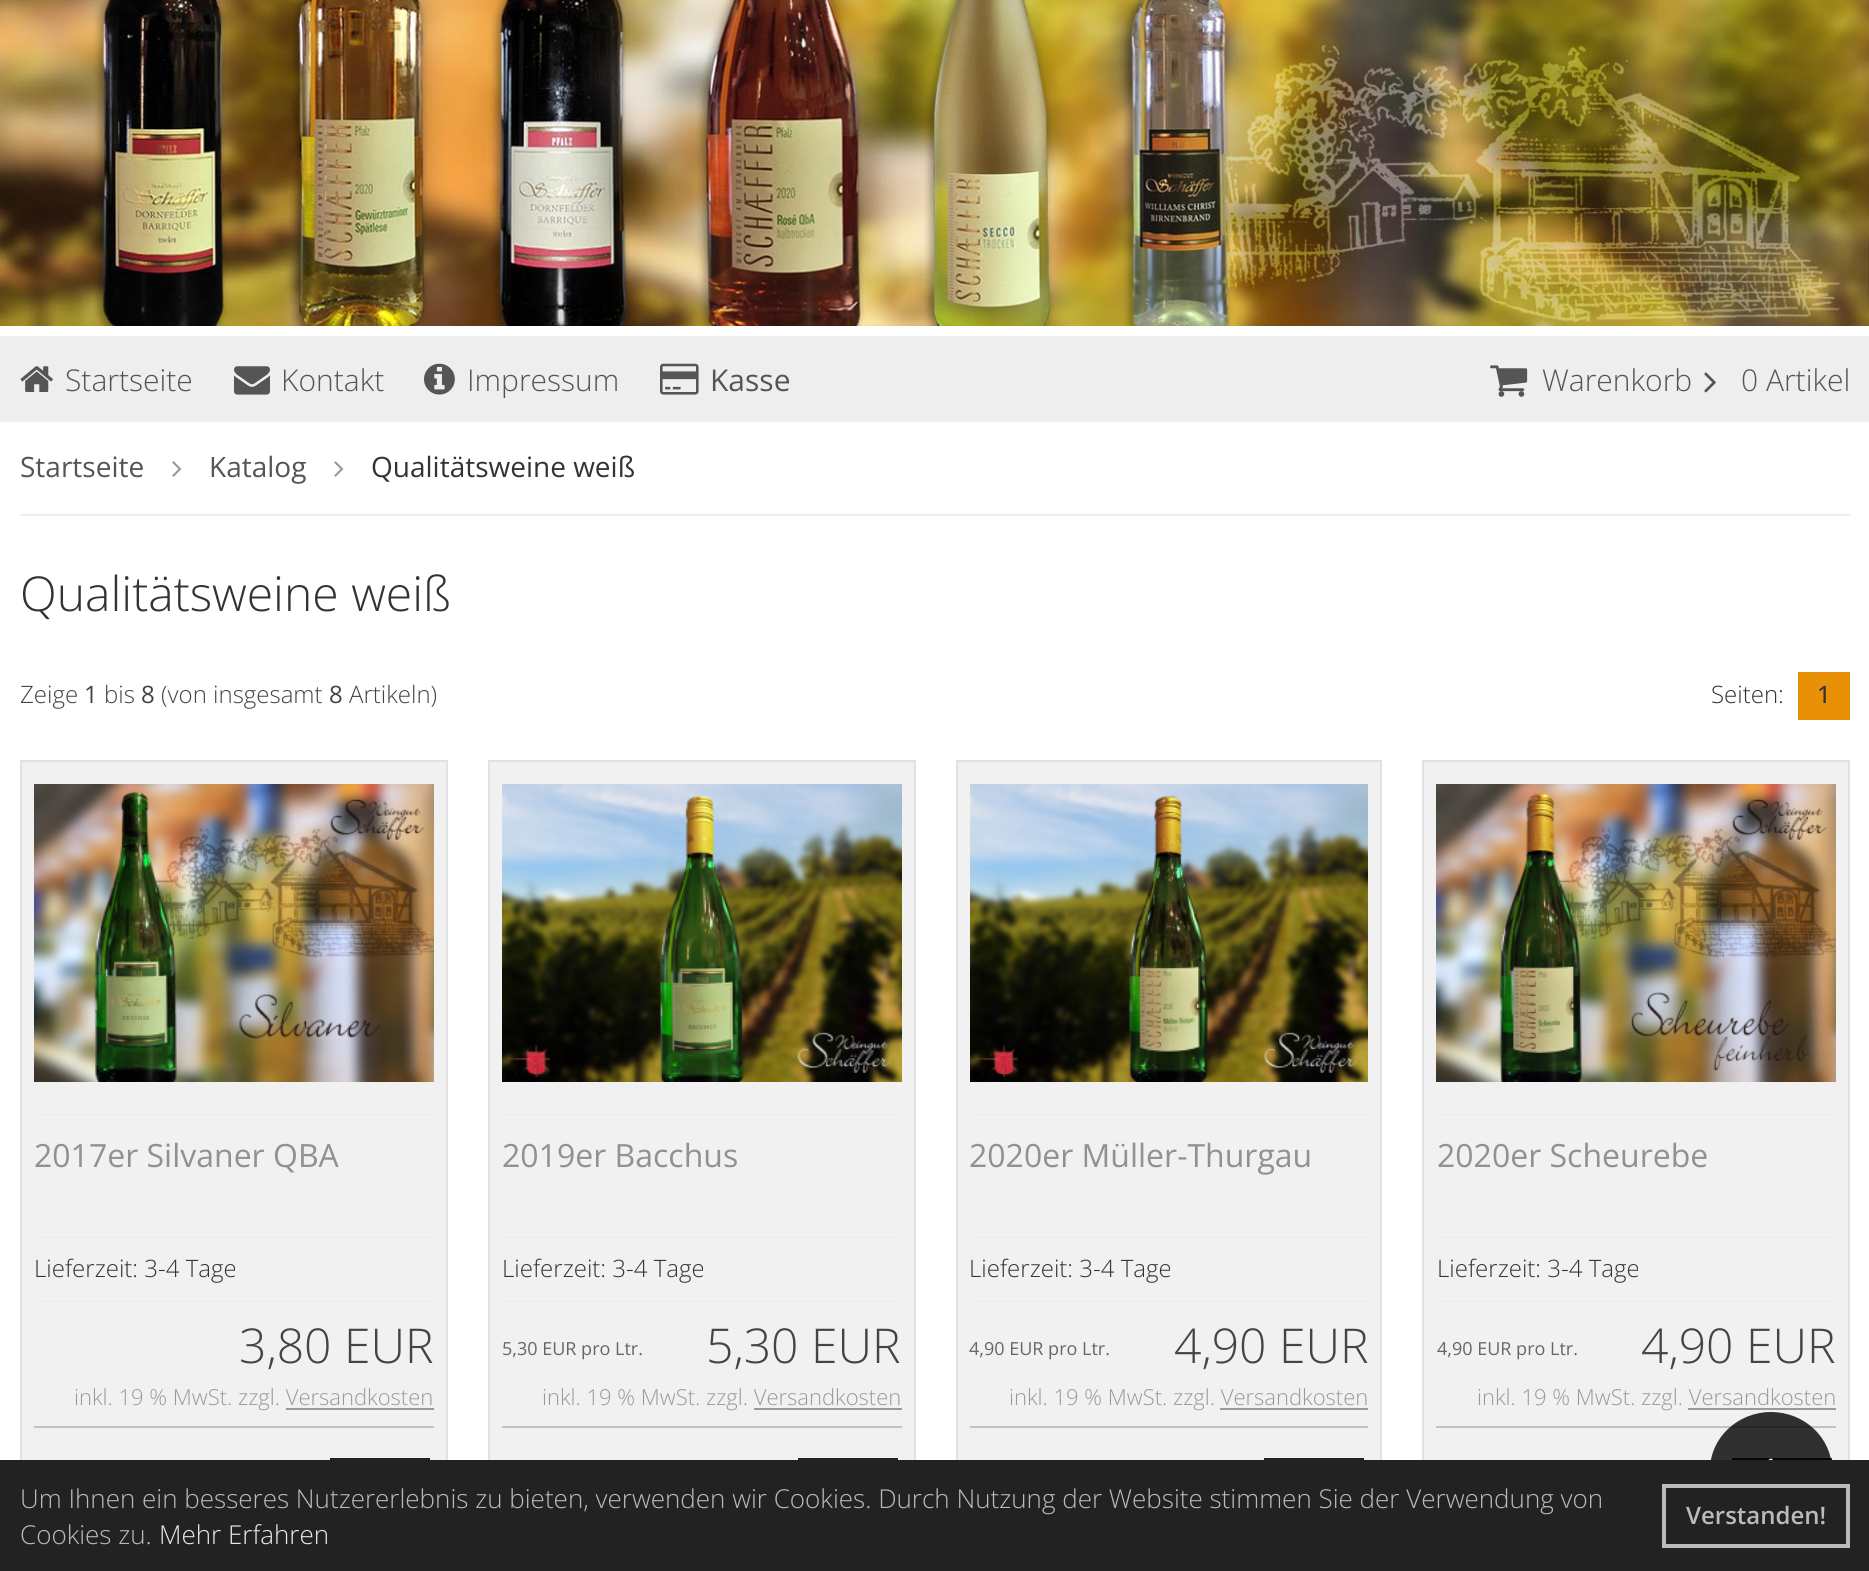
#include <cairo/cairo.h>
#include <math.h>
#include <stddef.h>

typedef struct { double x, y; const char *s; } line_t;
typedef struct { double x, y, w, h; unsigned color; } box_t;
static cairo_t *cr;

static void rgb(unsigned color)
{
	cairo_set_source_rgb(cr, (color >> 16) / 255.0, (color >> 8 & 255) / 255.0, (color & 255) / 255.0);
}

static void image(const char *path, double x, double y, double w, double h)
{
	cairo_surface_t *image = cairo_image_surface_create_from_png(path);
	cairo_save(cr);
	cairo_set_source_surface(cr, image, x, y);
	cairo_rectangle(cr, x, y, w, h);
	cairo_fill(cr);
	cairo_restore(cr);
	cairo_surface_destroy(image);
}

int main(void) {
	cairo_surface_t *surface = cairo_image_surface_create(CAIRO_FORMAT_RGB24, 1869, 1571);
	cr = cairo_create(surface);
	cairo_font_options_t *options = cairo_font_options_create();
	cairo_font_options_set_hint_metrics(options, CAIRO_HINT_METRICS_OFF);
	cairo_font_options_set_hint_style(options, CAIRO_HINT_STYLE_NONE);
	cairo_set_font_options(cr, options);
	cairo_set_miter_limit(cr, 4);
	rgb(0xffffff);
	cairo_paint(cr);
	image("img/1.png", 0, 0, 1869, 326);
	rgb(0xeeeeee);
	cairo_rectangle(cr, 0, 336, 1869, 86);
	cairo_fill(cr);
	image("img/2.png", 20, 366, 33, 26);
	image("img/3.png", 234, 366, 36, 29);
	image("img/4.png", 424, 363, 31, 32);
	image("img/5.png", 660, 363, 39, 32);
	image("img/6.png", 1490, 365, 38, 32);
	image("img/7.png", 1704, 372, 12, 21);
	cairo_rectangle(cr, 20, 514, 1830, 2);
	cairo_fill(cr);
	image("img/8.png", 172, 461, 10, 16);
	image("img/8.png", 334, 461, 10, 16);
	rgb(0xe89107);
	cairo_rectangle(cr, 1798, 672, 52, 48);
	cairo_fill(cr);
	rgb(0xf1f1f1);
	cairo_rectangle(cr, 22, 762, 424, 698);
	cairo_fill(cr);
	cairo_rectangle(cr, 21, 761, 426, 780);
	rgb(0xe1e1e1);
	cairo_stroke(cr);
	image("img/9.png", 34, 784, 400, 298);
	{
		static const box_t items[] = {
			{34, 1114, 400, 2, 0xeeeeee},
			{34, 1236, 400, 2, 0xeeeeee},
			{34, 1300, 400, 2, 0xeeeeee},
			{34, 1426, 400, 2, 0xc1c1c1},
			{286, 1408, 148, 2, 0x999999},
			{330, 1458, 100, 2, 0x1f2426},
			{490, 762, 424, 698, 0xf1f1f1},
		};
		for (size_t i = 0; i < sizeof items / sizeof *items; i++) {
			rgb(items[i].color);
			cairo_rectangle(cr, items[i].x, items[i].y, items[i].w, items[i].h);
			cairo_fill(cr);
		}
	}
	cairo_rectangle(cr, 489, 761, 426, 780);
	rgb(0xe1e1e1);
	cairo_stroke(cr);
	image("img/10.png", 502, 784, 400, 298);
	{
		static const box_t items[] = {
			{502, 1114, 400, 2, 0xeeeeee},
			{502, 1236, 400, 2, 0xeeeeee},
			{502, 1300, 400, 2, 0xeeeeee},
			{502, 1426, 400, 2, 0xc1c1c1},
			{754, 1408, 148, 2, 0x999999},
			{798, 1458, 100, 2, 0x1f2426},
			{958, 762, 422, 698, 0xf1f1f1},
		};
		for (size_t i = 0; i < sizeof items / sizeof *items; i++) {
			rgb(items[i].color);
			cairo_rectangle(cr, items[i].x, items[i].y, items[i].w, items[i].h);
			cairo_fill(cr);
		}
	}
	cairo_rectangle(cr, 957, 761, 424, 780);
	rgb(0xe1e1e1);
	cairo_stroke(cr);
	image("img/11.png", 970, 784, 398, 298);
	{
		static const box_t items[] = {
			{970, 1114, 398, 2, 0xeeeeee},
			{970, 1236, 398, 2, 0xeeeeee},
			{970, 1300, 398, 2, 0xeeeeee},
			{970, 1426, 398, 2, 0xc1c1c1},
			{1220, 1408, 148, 2, 0x999999},
			{1264, 1458, 100, 2, 0x1f2426},
			{1424, 762, 424, 698, 0xf1f1f1},
		};
		for (size_t i = 0; i < sizeof items / sizeof *items; i++) {
			rgb(items[i].color);
			cairo_rectangle(cr, items[i].x, items[i].y, items[i].w, items[i].h);
			cairo_fill(cr);
		}
	}
	cairo_rectangle(cr, 1423, 761, 426, 780);
	rgb(0xe1e1e1);
	cairo_stroke(cr);
	image("img/12.png", 1436, 784, 400, 298);
	{
		static const box_t items[] = {
			{1436, 1114, 400, 2, 0xeeeeee},
			{1436, 1236, 400, 2, 0xeeeeee},
			{1436, 1300, 400, 2, 0xeeeeee},
			{1436, 1426, 400, 2, 0xc1c1c1},
			{1688, 1408, 148, 2, 0x999999},
			{1732, 1458, 100, 2, 0x1f2426},
		};
		for (size_t i = 0; i < sizeof items / sizeof *items; i++) {
			rgb(items[i].color);
			cairo_rectangle(cr, items[i].x, items[i].y, items[i].w, items[i].h);
			cairo_fill(cr);
		}
	}
	cairo_set_source_rgba(cr, 0, 0, 0, 0.8);
	cairo_new_path(cr);
	cairo_move_to(cr, 1771, 1412);
	cairo_curve_to(cr, 1804.5, 1412, 1832, 1438, 1832, 1470);
	cairo_curve_to(cr, 1832, 1502, 1804.5, 1528, 1771, 1528);
	cairo_curve_to(cr, 1737.5, 1528, 1710, 1502, 1710, 1470);
	cairo_curve_to(cr, 1710, 1438, 1737.5, 1412, 1771, 1412);
	cairo_close_path(cr);
	cairo_fill(cr);
	rgb(0xffffff);
	cairo_new_path(cr);
	cairo_move_to(cr, 1797, 1484);
	cairo_curve_to(cr, 1798, 1485, 1797, 1487, 1796, 1488);
	cairo_curve_to(cr, 1792, 1491, 1792, 1489, 1788, 1486);
	cairo_line_to(cr, 1771, 1468);
	cairo_line_to(cr, 1749, 1489);
	cairo_curve_to(cr, 1748, 1490, 1747, 1489, 1746, 1488);
	cairo_curve_to(cr, 1742, 1484, 1745, 1484, 1749, 1480);
	cairo_line_to(cr, 1765, 1463);
	cairo_curve_to(cr, 1772, 1457, 1770, 1457, 1776, 1463);
	cairo_close_path(cr);
	cairo_fill(cr);
	rgb(0x222222);
	cairo_rectangle(cr, 0, 1460, 1869, 111);
	cairo_fill(cr);
	cairo_rectangle(cr, 1664, 1486, 184, 60);
	rgb(0xbbbbbb);
	cairo_set_line_width(cr, 4);
	cairo_stroke(cr);
	cairo_select_font_face(cr, "Open Sans Light", CAIRO_FONT_SLANT_NORMAL, CAIRO_FONT_WEIGHT_NORMAL);
	cairo_set_font_size(cr, 30);
	rgb(0x555555);
	{
		static const line_t items[] = {
			{65, 391, "Startseite"},
			{281, 391, "Kontakt"},
			{467, 391, "Impressum"},
		};
		for (size_t i = 0; i < sizeof items / sizeof *items; i++) {
			cairo_move_to(cr, items[i].x, items[i].y);
			cairo_show_text(cr, items[i].s);
		}
	}
	cairo_select_font_face(cr, "Open Sans", CAIRO_FONT_SLANT_NORMAL, CAIRO_FONT_WEIGHT_NORMAL);
	cairo_move_to(cr, 710, 391);
	cairo_show_text(cr, "Kasse");
	cairo_select_font_face(cr, "Open Sans Light", CAIRO_FONT_SLANT_NORMAL, CAIRO_FONT_WEIGHT_NORMAL);
	cairo_move_to(cr, 1542, 391);
	cairo_show_text(cr, "Warenkorb");
	cairo_move_to(cr, 1741, 391);
	cairo_show_text(cr, "0 Artikel");
	cairo_select_font_face(cr, "Open Sans", CAIRO_FONT_SLANT_NORMAL, CAIRO_FONT_WEIGHT_NORMAL);
	cairo_set_font_size(cr, 28);
	cairo_move_to(cr, 20, 477);
	cairo_show_text(cr, "Startseite");
	cairo_move_to(cr, 209, 477);
	cairo_show_text(cr, "Katalog");
	rgb(0x333333);
	cairo_move_to(cr, 371, 477);
	cairo_show_text(cr, "Qualitätsweine weiß");
	cairo_select_font_face(cr, "Open Sans Light", CAIRO_FONT_SLANT_NORMAL, CAIRO_FONT_WEIGHT_NORMAL);
	cairo_set_font_size(cr, 48);
	cairo_move_to(cr, 20, 611);
	cairo_show_text(cr, "Qualitätsweine weiß");
	cairo_set_font_size(cr, 24);
	rgb(0x444444);
	cairo_move_to(cr, 20, 703);
	cairo_show_text(cr, "Zeige");
	cairo_select_font_face(cr, "Open Sans", CAIRO_FONT_SLANT_NORMAL, CAIRO_FONT_WEIGHT_NORMAL);
	cairo_move_to(cr, 84, 703);
	cairo_show_text(cr, "1");
	cairo_select_font_face(cr, "Open Sans Light", CAIRO_FONT_SLANT_NORMAL, CAIRO_FONT_WEIGHT_NORMAL);
	cairo_move_to(cr, 104, 703);
	cairo_show_text(cr, "bis");
	cairo_select_font_face(cr, "Open Sans", CAIRO_FONT_SLANT_NORMAL, CAIRO_FONT_WEIGHT_NORMAL);
	cairo_move_to(cr, 141, 703);
	cairo_show_text(cr, "8");
	cairo_select_font_face(cr, "Open Sans Light", CAIRO_FONT_SLANT_NORMAL, CAIRO_FONT_WEIGHT_NORMAL);
	cairo_move_to(cr, 161, 703);
	cairo_show_text(cr, "(von insgesamt");
	cairo_select_font_face(cr, "Open Sans", CAIRO_FONT_SLANT_NORMAL, CAIRO_FONT_WEIGHT_NORMAL);
	cairo_move_to(cr, 329, 703);
	cairo_show_text(cr, "8");
	cairo_select_font_face(cr, "Open Sans Light", CAIRO_FONT_SLANT_NORMAL, CAIRO_FONT_WEIGHT_NORMAL);
	cairo_move_to(cr, 349, 703);
	cairo_show_text(cr, "Artikeln)");
	rgb(0x333333);
	cairo_move_to(cr, 1711, 703);
	cairo_show_text(cr, "Seiten:");
	cairo_select_font_face(cr, "Open Sans Medium", CAIRO_FONT_SLANT_NORMAL, CAIRO_FONT_WEIGHT_NORMAL);
	cairo_move_to(cr, 1817, 703);
	cairo_show_text(cr, "1");
	cairo_select_font_face(cr, "Open Sans", CAIRO_FONT_SLANT_NORMAL, CAIRO_FONT_WEIGHT_NORMAL);
	cairo_set_font_size(cr, 32);
	rgb(0x919191);
	cairo_move_to(cr, 34, 1167);
	cairo_show_text(cr, "2017er Silvaner QBA");
	cairo_select_font_face(cr, "Open Sans Light", CAIRO_FONT_SLANT_NORMAL, CAIRO_FONT_WEIGHT_NORMAL);
	cairo_set_font_size(cr, 24);
	rgb(0x333333);
	cairo_move_to(cr, 34, 1277);
	cairo_show_text(cr, "Lieferzeit: 3-4 Tage");
	cairo_set_font_size(cr, 48);
	rgb(0x444444);
	cairo_move_to(cr, 239, 1363);
	cairo_show_text(cr, "3,80 EUR");
	cairo_set_font_size(cr, 22);
	rgb(0x999999);
	cairo_move_to(cr, 74, 1405);
	cairo_show_text(cr, "inkl. 19 % MwSt. zzgl. Versandkosten");
	cairo_select_font_face(cr, "Open Sans", CAIRO_FONT_SLANT_NORMAL, CAIRO_FONT_WEIGHT_NORMAL);
	cairo_set_font_size(cr, 32);
	rgb(0x919191);
	cairo_move_to(cr, 502, 1167);
	cairo_show_text(cr, "2019er Bacchus");
	cairo_select_font_face(cr, "Open Sans Light", CAIRO_FONT_SLANT_NORMAL, CAIRO_FONT_WEIGHT_NORMAL);
	cairo_set_font_size(cr, 24);
	rgb(0x333333);
	cairo_move_to(cr, 502, 1277);
	cairo_show_text(cr, "Lieferzeit: 3-4 Tage");
	cairo_select_font_face(cr, "Open Sans", CAIRO_FONT_SLANT_NORMAL, CAIRO_FONT_WEIGHT_NORMAL);
	cairo_set_font_size(cr, 18);
	rgb(0x666666);
	cairo_move_to(cr, 502, 1355);
	cairo_show_text(cr, "5,30 EUR pro Ltr.");
	cairo_select_font_face(cr, "Open Sans Light", CAIRO_FONT_SLANT_NORMAL, CAIRO_FONT_WEIGHT_NORMAL);
	cairo_set_font_size(cr, 48);
	rgb(0x444444);
	cairo_move_to(cr, 706, 1363);
	cairo_show_text(cr, "5,30 EUR");
	cairo_set_font_size(cr, 22);
	rgb(0x999999);
	cairo_move_to(cr, 542, 1405);
	cairo_show_text(cr, "inkl. 19 % MwSt. zzgl. Versandkosten");
	cairo_select_font_face(cr, "Open Sans", CAIRO_FONT_SLANT_NORMAL, CAIRO_FONT_WEIGHT_NORMAL);
	cairo_set_font_size(cr, 32);
	rgb(0x919191);
	cairo_move_to(cr, 969, 1167);
	cairo_show_text(cr, "2020er Müller-Thurgau");
	cairo_select_font_face(cr, "Open Sans Light", CAIRO_FONT_SLANT_NORMAL, CAIRO_FONT_WEIGHT_NORMAL);
	cairo_set_font_size(cr, 24);
	rgb(0x333333);
	cairo_move_to(cr, 969, 1277);
	cairo_show_text(cr, "Lieferzeit: 3-4 Tage");
	cairo_select_font_face(cr, "Open Sans", CAIRO_FONT_SLANT_NORMAL, CAIRO_FONT_WEIGHT_NORMAL);
	cairo_set_font_size(cr, 18);
	rgb(0x666666);
	cairo_move_to(cr, 969, 1355);
	cairo_show_text(cr, "4,90 EUR pro Ltr.");
	cairo_select_font_face(cr, "Open Sans Light", CAIRO_FONT_SLANT_NORMAL, CAIRO_FONT_WEIGHT_NORMAL);
	cairo_set_font_size(cr, 48);
	rgb(0x444444);
	cairo_move_to(cr, 1174, 1363);
	cairo_show_text(cr, "4,90 EUR");
	cairo_set_font_size(cr, 22);
	rgb(0x999999);
	cairo_move_to(cr, 1009, 1405);
	cairo_show_text(cr, "inkl. 19 % MwSt. zzgl. Versandkosten");
	cairo_select_font_face(cr, "Open Sans", CAIRO_FONT_SLANT_NORMAL, CAIRO_FONT_WEIGHT_NORMAL);
	cairo_set_font_size(cr, 32);
	rgb(0x919191);
	cairo_move_to(cr, 1437, 1167);
	cairo_show_text(cr, "2020er Scheurebe");
	cairo_select_font_face(cr, "Open Sans Light", CAIRO_FONT_SLANT_NORMAL, CAIRO_FONT_WEIGHT_NORMAL);
	cairo_set_font_size(cr, 24);
	rgb(0x333333);
	cairo_move_to(cr, 1437, 1277);
	cairo_show_text(cr, "Lieferzeit: 3-4 Tage");
	cairo_select_font_face(cr, "Open Sans", CAIRO_FONT_SLANT_NORMAL, CAIRO_FONT_WEIGHT_NORMAL);
	cairo_set_font_size(cr, 18);
	rgb(0x666666);
	cairo_move_to(cr, 1437, 1355);
	cairo_show_text(cr, "4,90 EUR pro Ltr.");
	cairo_select_font_face(cr, "Open Sans Light", CAIRO_FONT_SLANT_NORMAL, CAIRO_FONT_WEIGHT_NORMAL);
	cairo_set_font_size(cr, 48);
	rgb(0x444444);
	cairo_move_to(cr, 1641, 1363);
	cairo_show_text(cr, "4,90 EUR");
	cairo_set_font_size(cr, 22);
	rgb(0x999999);
	cairo_move_to(cr, 1477, 1405);
	cairo_show_text(cr, "inkl. 19 % MwSt. zzgl. Versandkosten");
	cairo_set_font_size(cr, 26);
	rgb(0xbbbbbb);
	cairo_move_to(cr, 20, 1508);
	cairo_show_text(cr, "Um Ihnen ein besseres Nutzererlebnis zu bieten, verwenden wir Cookies. Durch Nutzung der Website stimmen Sie der Verwendung von");
	cairo_move_to(cr, 20, 1544);
	cairo_show_text(cr, "Cookies zu.");
	rgb(0xe9e9e9);
	cairo_move_to(cr, 159, 1544);
	cairo_show_text(cr, "Mehr Erfahren");
	cairo_select_font_face(cr, "Open Sans SemiBold", CAIRO_FONT_SLANT_NORMAL, CAIRO_FONT_WEIGHT_NORMAL);
	cairo_set_font_size(cr, 24);
	rgb(0xbbbbbb);
	cairo_move_to(cr, 1686, 1524);
	cairo_show_text(cr, "Verstanden!");
	cairo_surface_write_to_png(surface, "page.png");
	cairo_font_options_destroy(options);
	cairo_destroy(cr);
	cairo_surface_destroy(surface);
	return 0;
}
